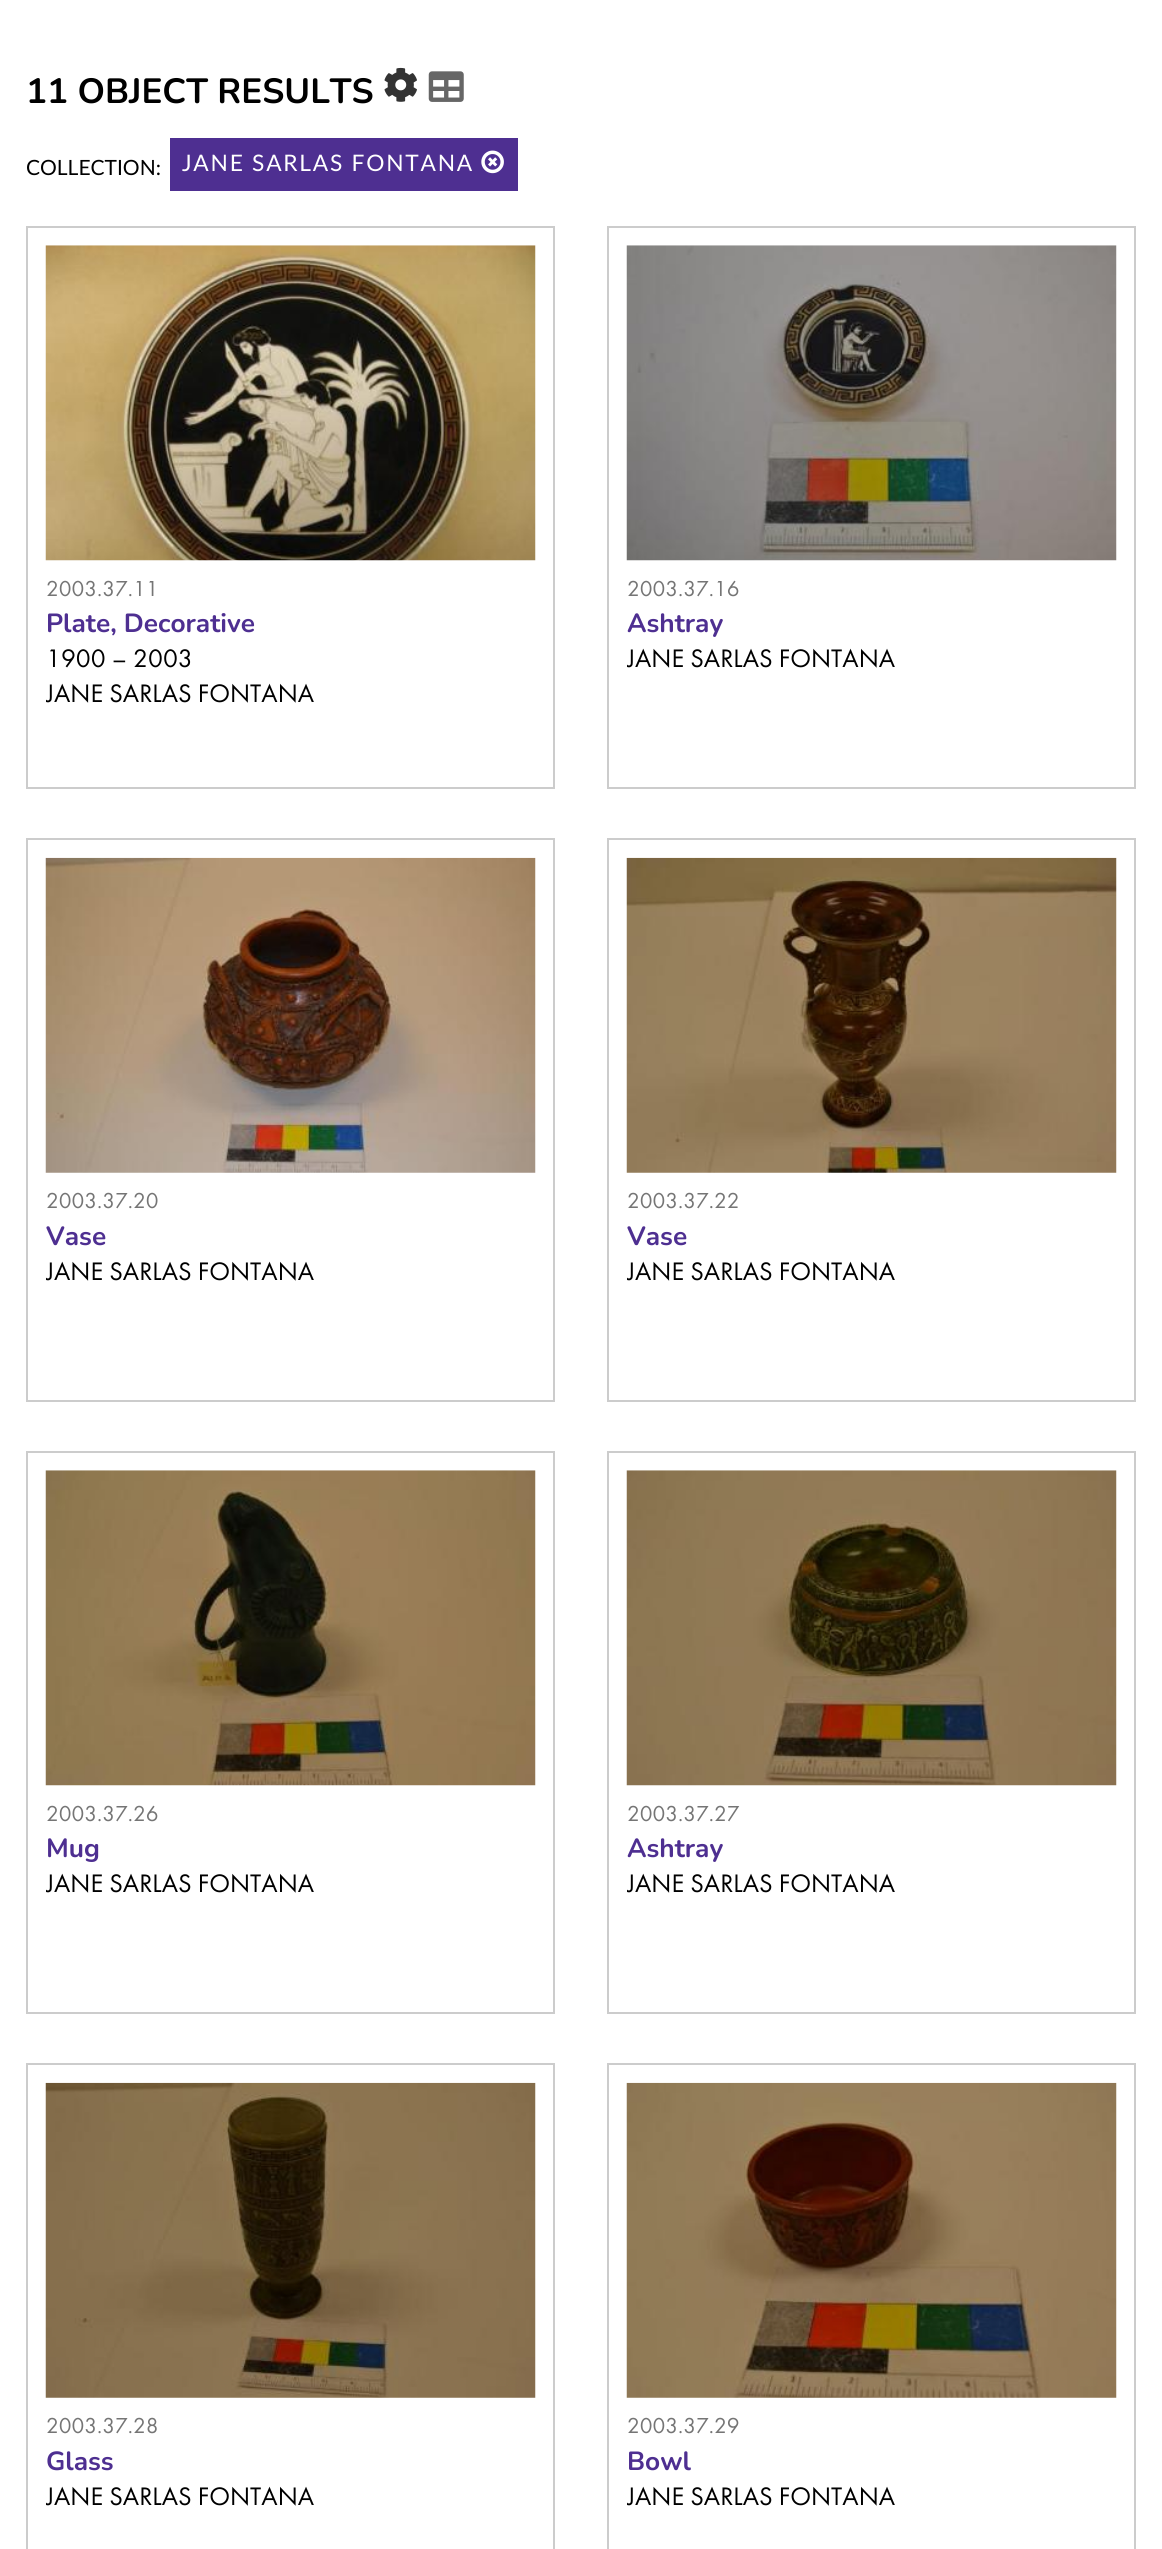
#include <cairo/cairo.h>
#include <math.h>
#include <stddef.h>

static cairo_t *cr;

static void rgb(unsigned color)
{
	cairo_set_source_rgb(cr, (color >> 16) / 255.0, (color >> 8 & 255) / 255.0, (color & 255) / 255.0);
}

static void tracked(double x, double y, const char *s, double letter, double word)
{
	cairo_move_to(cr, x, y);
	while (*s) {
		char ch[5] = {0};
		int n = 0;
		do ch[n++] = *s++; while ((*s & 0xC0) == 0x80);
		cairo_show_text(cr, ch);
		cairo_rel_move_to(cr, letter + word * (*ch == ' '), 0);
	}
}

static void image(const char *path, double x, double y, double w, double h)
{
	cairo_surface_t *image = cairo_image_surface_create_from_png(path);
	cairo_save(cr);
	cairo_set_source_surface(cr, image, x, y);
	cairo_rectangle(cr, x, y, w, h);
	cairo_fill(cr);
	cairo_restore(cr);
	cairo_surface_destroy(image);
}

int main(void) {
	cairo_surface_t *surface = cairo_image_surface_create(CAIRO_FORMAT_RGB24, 1162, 2549);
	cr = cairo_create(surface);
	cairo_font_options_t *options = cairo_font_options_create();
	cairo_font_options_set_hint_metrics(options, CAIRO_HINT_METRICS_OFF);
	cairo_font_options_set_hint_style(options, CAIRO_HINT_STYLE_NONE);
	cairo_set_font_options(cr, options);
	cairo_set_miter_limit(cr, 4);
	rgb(0xffffff);
	cairo_paint(cr);
	image("img/1.png", 384, 67, 33, 35);
	image("img/2.png", 428, 71, 36, 31);
	rgb(0x4e2f91);
	cairo_rectangle(cr, 170, 138, 348, 53);
	cairo_fill(cr);
	image("img/3.png", 481, 150, 23, 24);
	cairo_rectangle(cr, 27, 227, 527, 561);
	rgb(0xcccccc);
	cairo_stroke(cr);
	image("img/4.png", 45, 245, 491, 316);
	cairo_rectangle(cr, 608, 227, 527, 561);
	cairo_stroke(cr);
	image("img/5.png", 626, 245, 491, 316);
	cairo_rectangle(cr, 27, 839, 527, 562);
	cairo_stroke(cr);
	image("img/6.png", 45, 857, 491, 316);
	cairo_rectangle(cr, 608, 839, 527, 562);
	cairo_stroke(cr);
	image("img/7.png", 626, 857, 491, 316);
	cairo_rectangle(cr, 27, 1452, 527, 561);
	cairo_stroke(cr);
	image("img/8.png", 45, 1470, 491, 316);
	cairo_rectangle(cr, 608, 1452, 527, 561);
	cairo_stroke(cr);
	image("img/9.png", 626, 1470, 491, 316);
	cairo_rectangle(cr, 27, 2064, 527, 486);
	cairo_stroke(cr);
	image("img/10.png", 45, 2082, 491, 316);
	cairo_rectangle(cr, 608, 2064, 527, 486);
	cairo_stroke(cr);
	image("img/11.png", 626, 2082, 491, 316);
	cairo_select_font_face(cr, "Nunito", CAIRO_FONT_SLANT_NORMAL, CAIRO_FONT_WEIGHT_BOLD);
	cairo_set_font_size(cr, 35);
	rgb(0x000000);
	cairo_move_to(cr, 26, 103);
	cairo_show_text(cr, "11 OBJECT RESULTS");
	cairo_select_font_face(cr, "Lato", CAIRO_FONT_SLANT_NORMAL, CAIRO_FONT_WEIGHT_NORMAL);
	cairo_set_font_size(cr, 21);
	cairo_move_to(cr, 26, 175);
	cairo_show_text(cr, "COLLECTION:");
	cairo_set_font_size(cr, 22.75);
	rgb(0xffffff);
	tracked(182, 171, "JANE SARLAS FONTANA", 1.75, 0);
	cairo_select_font_face(cr, "Futura PT", CAIRO_FONT_SLANT_NORMAL, CAIRO_FONT_WEIGHT_NORMAL);
	cairo_set_font_size(cr, 22.5);
	rgb(0x757575);
	cairo_move_to(cr, 46, 596);
	cairo_show_text(cr, "2003.37.11");
	cairo_select_font_face(cr, "Nunito", CAIRO_FONT_SLANT_NORMAL, CAIRO_FONT_WEIGHT_BOLD);
	cairo_set_font_size(cr, 26.25);
	rgb(0x4e2f91);
	cairo_move_to(cr, 46, 632);
	cairo_show_text(cr, "Plate, Decorative");
	cairo_select_font_face(cr, "Futura PT", CAIRO_FONT_SLANT_NORMAL, CAIRO_FONT_WEIGHT_NORMAL);
	rgb(0x000000);
	cairo_move_to(cr, 46, 667);
	cairo_show_text(cr, "1900 – 2003");
	cairo_save(cr);
	cairo_rectangle(cr, 46, 245, 490, 525);
	cairo_clip(cr);
	cairo_move_to(cr, 46, 702);
	cairo_show_text(cr, "JANE SARLAS FONTANA");
	cairo_restore(cr);
	cairo_set_font_size(cr, 22.5);
	rgb(0x757575);
	cairo_move_to(cr, 627, 596);
	cairo_show_text(cr, "2003.37.16");
	cairo_select_font_face(cr, "Nunito", CAIRO_FONT_SLANT_NORMAL, CAIRO_FONT_WEIGHT_BOLD);
	cairo_set_font_size(cr, 26.25);
	rgb(0x4e2f91);
	cairo_move_to(cr, 627, 632);
	cairo_show_text(cr, "Ashtray");
	cairo_save(cr);
	cairo_rectangle(cr, 627, 245, 490, 525);
	cairo_clip(cr);
	cairo_select_font_face(cr, "Futura PT", CAIRO_FONT_SLANT_NORMAL, CAIRO_FONT_WEIGHT_NORMAL);
	rgb(0x000000);
	cairo_move_to(cr, 627, 667);
	cairo_show_text(cr, "JANE SARLAS FONTANA");
	cairo_restore(cr);
	cairo_select_font_face(cr, "Futura PT", CAIRO_FONT_SLANT_NORMAL, CAIRO_FONT_WEIGHT_NORMAL);
	cairo_set_font_size(cr, 22.5);
	rgb(0x757575);
	cairo_move_to(cr, 46, 1208);
	cairo_show_text(cr, "2003.37.20");
	cairo_select_font_face(cr, "Nunito", CAIRO_FONT_SLANT_NORMAL, CAIRO_FONT_WEIGHT_BOLD);
	cairo_set_font_size(cr, 26.25);
	rgb(0x4e2f91);
	cairo_move_to(cr, 46, 1245);
	cairo_show_text(cr, "Vase");
	cairo_save(cr);
	cairo_rectangle(cr, 46, 858, 490, 525);
	cairo_clip(cr);
	cairo_select_font_face(cr, "Futura PT", CAIRO_FONT_SLANT_NORMAL, CAIRO_FONT_WEIGHT_NORMAL);
	rgb(0x000000);
	cairo_move_to(cr, 46, 1280);
	cairo_show_text(cr, "JANE SARLAS FONTANA");
	cairo_restore(cr);
	cairo_select_font_face(cr, "Futura PT", CAIRO_FONT_SLANT_NORMAL, CAIRO_FONT_WEIGHT_NORMAL);
	cairo_set_font_size(cr, 22.5);
	rgb(0x757575);
	cairo_move_to(cr, 627, 1208);
	cairo_show_text(cr, "2003.37.22");
	cairo_select_font_face(cr, "Nunito", CAIRO_FONT_SLANT_NORMAL, CAIRO_FONT_WEIGHT_BOLD);
	cairo_set_font_size(cr, 26.25);
	rgb(0x4e2f91);
	cairo_move_to(cr, 627, 1245);
	cairo_show_text(cr, "Vase");
	cairo_save(cr);
	cairo_rectangle(cr, 627, 858, 490, 525);
	cairo_clip(cr);
	cairo_select_font_face(cr, "Futura PT", CAIRO_FONT_SLANT_NORMAL, CAIRO_FONT_WEIGHT_NORMAL);
	rgb(0x000000);
	cairo_move_to(cr, 627, 1280);
	cairo_show_text(cr, "JANE SARLAS FONTANA");
	cairo_restore(cr);
	cairo_select_font_face(cr, "Futura PT", CAIRO_FONT_SLANT_NORMAL, CAIRO_FONT_WEIGHT_NORMAL);
	cairo_set_font_size(cr, 22.5);
	rgb(0x757575);
	cairo_move_to(cr, 46, 1821);
	cairo_show_text(cr, "2003.37.26");
	cairo_select_font_face(cr, "Nunito", CAIRO_FONT_SLANT_NORMAL, CAIRO_FONT_WEIGHT_BOLD);
	cairo_set_font_size(cr, 26.25);
	rgb(0x4e2f91);
	cairo_move_to(cr, 46, 1857);
	cairo_show_text(cr, "Mug");
	cairo_save(cr);
	cairo_rectangle(cr, 46, 1470, 490, 525);
	cairo_clip(cr);
	cairo_select_font_face(cr, "Futura PT", CAIRO_FONT_SLANT_NORMAL, CAIRO_FONT_WEIGHT_NORMAL);
	rgb(0x000000);
	cairo_move_to(cr, 46, 1892);
	cairo_show_text(cr, "JANE SARLAS FONTANA");
	cairo_restore(cr);
	cairo_select_font_face(cr, "Futura PT", CAIRO_FONT_SLANT_NORMAL, CAIRO_FONT_WEIGHT_NORMAL);
	cairo_set_font_size(cr, 22.5);
	rgb(0x757575);
	cairo_move_to(cr, 627, 1821);
	cairo_show_text(cr, "2003.37.27");
	cairo_select_font_face(cr, "Nunito", CAIRO_FONT_SLANT_NORMAL, CAIRO_FONT_WEIGHT_BOLD);
	cairo_set_font_size(cr, 26.25);
	rgb(0x4e2f91);
	cairo_move_to(cr, 627, 1857);
	cairo_show_text(cr, "Ashtray");
	cairo_save(cr);
	cairo_rectangle(cr, 627, 1470, 490, 525);
	cairo_clip(cr);
	cairo_select_font_face(cr, "Futura PT", CAIRO_FONT_SLANT_NORMAL, CAIRO_FONT_WEIGHT_NORMAL);
	rgb(0x000000);
	cairo_move_to(cr, 627, 1892);
	cairo_show_text(cr, "JANE SARLAS FONTANA");
	cairo_restore(cr);
	cairo_select_font_face(cr, "Futura PT", CAIRO_FONT_SLANT_NORMAL, CAIRO_FONT_WEIGHT_NORMAL);
	cairo_set_font_size(cr, 22.5);
	rgb(0x757575);
	cairo_move_to(cr, 46, 2433);
	cairo_show_text(cr, "2003.37.28");
	cairo_select_font_face(cr, "Nunito", CAIRO_FONT_SLANT_NORMAL, CAIRO_FONT_WEIGHT_BOLD);
	cairo_set_font_size(cr, 26.25);
	rgb(0x4e2f91);
	cairo_move_to(cr, 46, 2470);
	cairo_show_text(cr, "Glass");
	cairo_save(cr);
	cairo_rectangle(cr, 46, 2083, 490, 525);
	cairo_clip(cr);
	cairo_select_font_face(cr, "Futura PT", CAIRO_FONT_SLANT_NORMAL, CAIRO_FONT_WEIGHT_NORMAL);
	rgb(0x000000);
	cairo_move_to(cr, 46, 2505);
	cairo_show_text(cr, "JANE SARLAS FONTANA");
	cairo_restore(cr);
	cairo_select_font_face(cr, "Futura PT", CAIRO_FONT_SLANT_NORMAL, CAIRO_FONT_WEIGHT_NORMAL);
	cairo_set_font_size(cr, 22.5);
	rgb(0x757575);
	cairo_move_to(cr, 627, 2433);
	cairo_show_text(cr, "2003.37.29");
	cairo_select_font_face(cr, "Nunito", CAIRO_FONT_SLANT_NORMAL, CAIRO_FONT_WEIGHT_BOLD);
	cairo_set_font_size(cr, 26.25);
	rgb(0x4e2f91);
	cairo_move_to(cr, 627, 2470);
	cairo_show_text(cr, "Bowl");
	cairo_save(cr);
	cairo_rectangle(cr, 627, 2083, 490, 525);
	cairo_clip(cr);
	cairo_select_font_face(cr, "Futura PT", CAIRO_FONT_SLANT_NORMAL, CAIRO_FONT_WEIGHT_NORMAL);
	rgb(0x000000);
	cairo_move_to(cr, 627, 2505);
	cairo_show_text(cr, "JANE SARLAS FONTANA");
	cairo_restore(cr);
	cairo_surface_write_to_png(surface, "page.png");
	cairo_font_options_destroy(options);
	cairo_destroy(cr);
	cairo_surface_destroy(surface);
	return 0;
}
